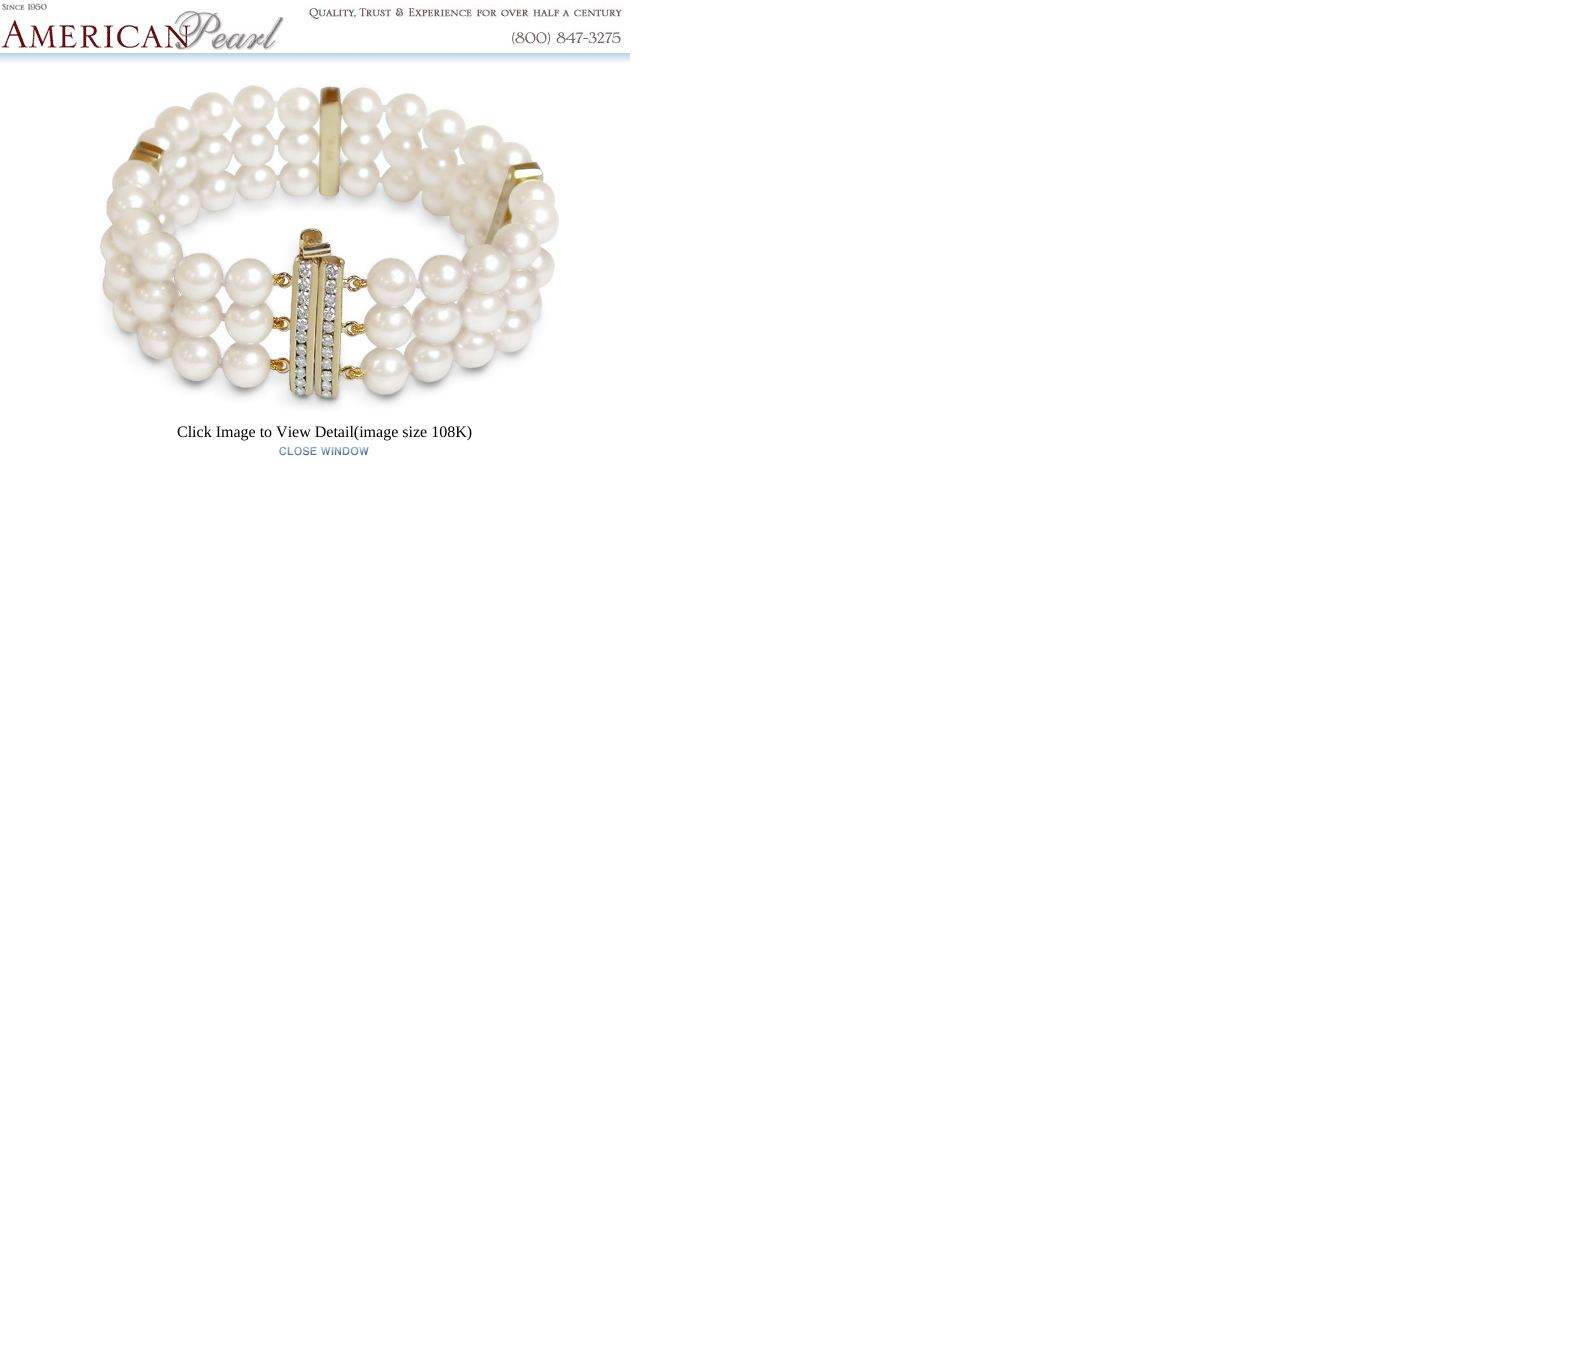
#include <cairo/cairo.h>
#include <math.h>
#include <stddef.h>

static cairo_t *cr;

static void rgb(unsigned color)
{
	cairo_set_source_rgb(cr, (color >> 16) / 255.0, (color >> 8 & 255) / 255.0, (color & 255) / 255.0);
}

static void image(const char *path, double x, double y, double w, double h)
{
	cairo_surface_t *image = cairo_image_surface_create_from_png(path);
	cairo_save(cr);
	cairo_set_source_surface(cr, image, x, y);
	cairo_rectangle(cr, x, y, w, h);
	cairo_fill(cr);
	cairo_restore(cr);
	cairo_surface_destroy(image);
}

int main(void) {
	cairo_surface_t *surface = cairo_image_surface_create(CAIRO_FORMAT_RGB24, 1571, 1355);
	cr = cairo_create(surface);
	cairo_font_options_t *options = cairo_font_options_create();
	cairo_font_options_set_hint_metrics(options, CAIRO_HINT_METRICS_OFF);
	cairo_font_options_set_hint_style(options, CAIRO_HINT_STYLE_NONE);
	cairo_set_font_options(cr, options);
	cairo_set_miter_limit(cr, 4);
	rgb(0xffffff);
	cairo_paint(cr);
	image("img/1.png", 0, 3, 630, 60);
	image("img/2.png", 98, 84, 462, 327);
	image("img/3.png", 279, 446, 90, 10);
	cairo_select_font_face(cr, "Liberation Serif", CAIRO_FONT_SLANT_NORMAL, CAIRO_FONT_WEIGHT_NORMAL);
	cairo_set_font_size(cr, 16);
	rgb(0x000000);
	cairo_move_to(cr, 177, 437);
	cairo_show_text(cr, "Click Image to View Detail(image size 108K)");
	cairo_surface_write_to_png(surface, "page.png");
	cairo_font_options_destroy(options);
	cairo_destroy(cr);
	cairo_surface_destroy(surface);
	return 0;
}
